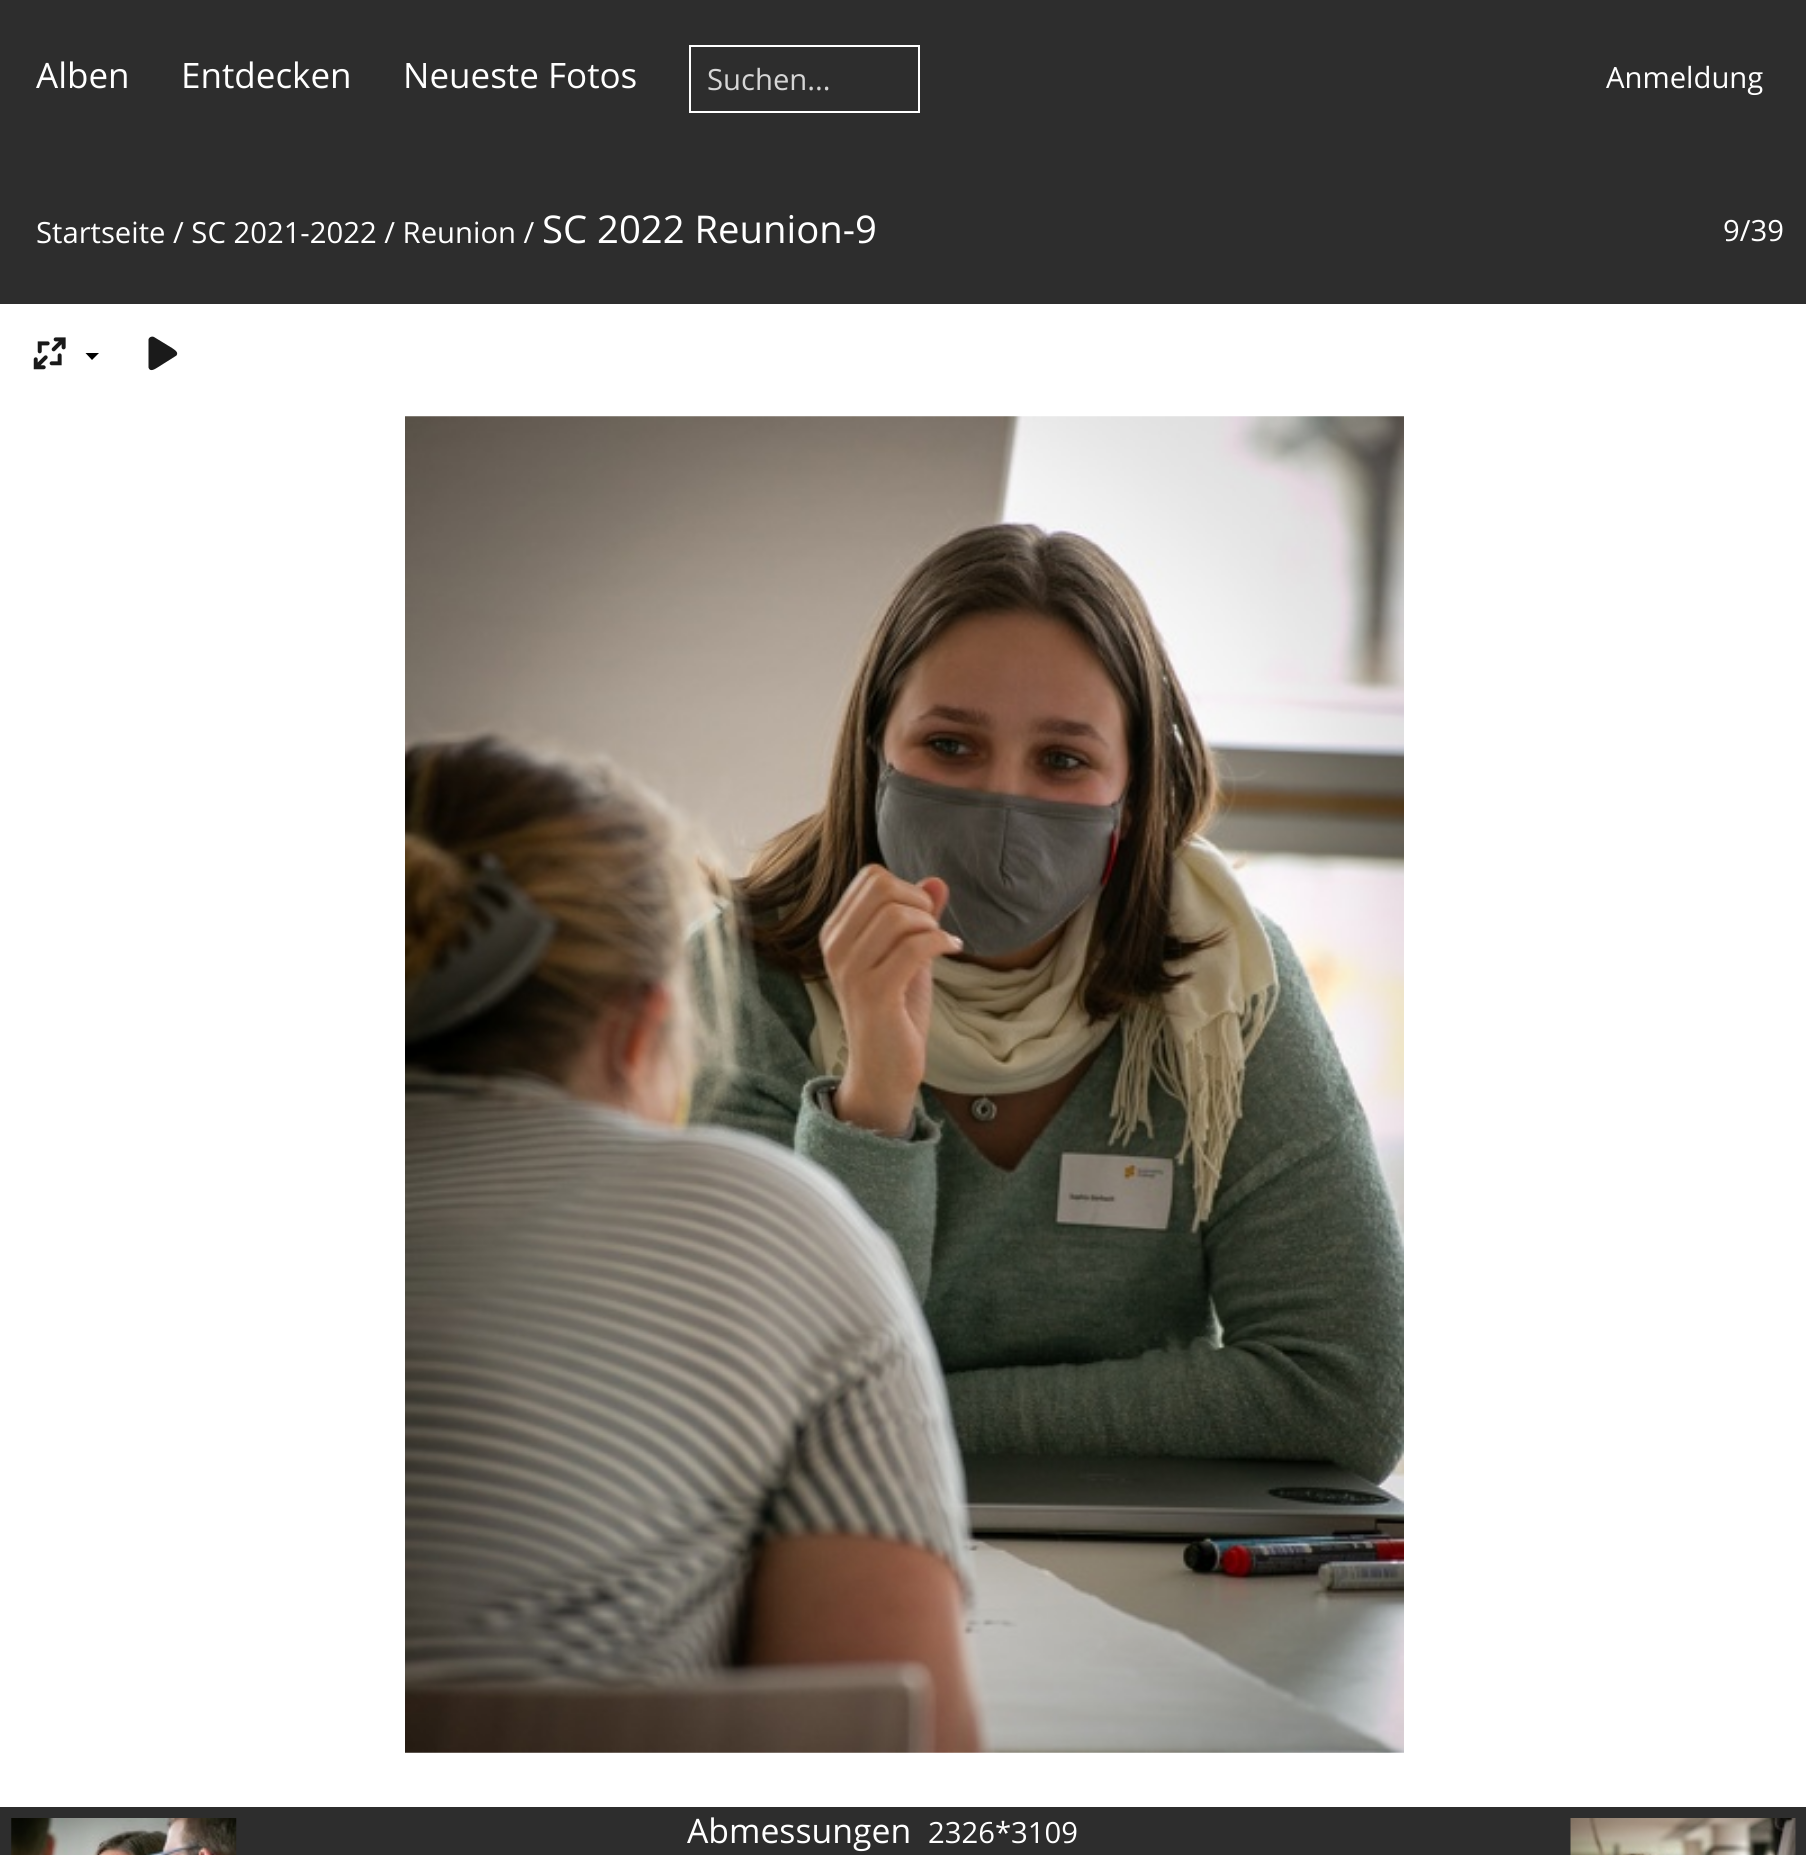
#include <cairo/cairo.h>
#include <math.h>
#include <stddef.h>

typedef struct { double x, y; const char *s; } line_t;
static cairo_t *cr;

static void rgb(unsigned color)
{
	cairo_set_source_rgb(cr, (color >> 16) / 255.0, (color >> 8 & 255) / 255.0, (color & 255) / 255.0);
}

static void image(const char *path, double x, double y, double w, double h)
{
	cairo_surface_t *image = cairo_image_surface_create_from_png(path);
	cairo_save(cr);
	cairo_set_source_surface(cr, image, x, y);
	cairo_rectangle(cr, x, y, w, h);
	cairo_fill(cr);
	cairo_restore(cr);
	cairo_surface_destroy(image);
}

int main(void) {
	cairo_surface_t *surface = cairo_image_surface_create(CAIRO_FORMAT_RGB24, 1806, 1855);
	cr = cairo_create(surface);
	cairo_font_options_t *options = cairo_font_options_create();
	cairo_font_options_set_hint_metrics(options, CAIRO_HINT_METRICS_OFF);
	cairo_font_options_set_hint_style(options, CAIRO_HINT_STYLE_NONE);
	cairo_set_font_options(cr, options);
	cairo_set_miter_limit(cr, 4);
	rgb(0xffffff);
	cairo_paint(cr);
	rgb(0x2d2d2d);
	cairo_rectangle(cr, 0, 0, 1806, 304);
	cairo_fill(cr);
	cairo_rectangle(cr, 690, 46, 229, 66);
	rgb(0xffffff);
	cairo_stroke(cr);
	image("img/1.png", 33, 337, 33, 33);
	rgb(0x000000);
	cairo_new_path(cr);
	cairo_move_to(cr, 85.5, 353);
	cairo_line_to(cr, 99, 353);
	cairo_line_to(cr, 92, 360);
	cairo_close_path(cr);
	cairo_fill(cr);
	rgb(0x1a1a1a);
	cairo_new_path(cr);
	cairo_move_to(cr, 154, 337);
	cairo_curve_to(cr, 152, 336, 149, 337, 148.5, 339.5);
	cairo_line_to(cr, 148.5, 367.5);
	cairo_curve_to(cr, 150, 372.5, 155, 369, 157.5, 367.5);
	cairo_line_to(cr, 176.5, 355.5);
	cairo_curve_to(cr, 179, 352, 174, 349.5, 172, 348);
	cairo_close_path(cr);
	cairo_fill(cr);
	image("img/2.png", 405, 416, 999, 1337);
	rgb(0x2d2d2d);
	cairo_rectangle(cr, 0, 1807, 1806, 48);
	cairo_fill(cr);
	image("img/3.png", 11, 1818, 226, 37);
	image("img/4.png", 1570, 1818, 226, 37);
	cairo_select_font_face(cr, "Open Sans", CAIRO_FONT_SLANT_NORMAL, CAIRO_FONT_WEIGHT_NORMAL);
	cairo_set_font_size(cr, 35);
	rgb(0xffffff);
	{
		static const line_t items[] = {
			{36, 88, "Alben"},
			{181, 88, "Entdecken"},
			{403, 88, "Neueste Fotos"},
		};
		for (size_t i = 0; i < sizeof items / sizeof *items; i++) {
			cairo_move_to(cr, items[i].x, items[i].y);
			cairo_show_text(cr, items[i].s);
		}
	}
	cairo_set_font_size(cr, 29.25);
	rgb(0xd6d6d6);
	cairo_move_to(cr, 707, 90);
	cairo_show_text(cr, "Suchen...");
	rgb(0xffffff);
	cairo_move_to(cr, 1606, 88);
	cairo_show_text(cr, "Anmeldung");
	cairo_move_to(cr, 36, 243);
	cairo_show_text(cr, "Startseite / SC 2021-2022 / Reunion /");
	cairo_set_font_size(cr, 38.25);
	cairo_move_to(cr, 542, 243);
	cairo_show_text(cr, "SC 2022 Reunion-9");
	cairo_set_font_size(cr, 29.25);
	cairo_move_to(cr, 1723, 241);
	cairo_show_text(cr, "9/39");
	cairo_set_font_size(cr, 33.75);
	cairo_move_to(cr, 687, 1843);
	cairo_show_text(cr, "Abmessungen");
	cairo_set_font_size(cr, 29.25);
	cairo_move_to(cr, 928, 1843);
	cairo_show_text(cr, "2326*3109");
	cairo_surface_write_to_png(surface, "page.png");
	cairo_font_options_destroy(options);
	cairo_destroy(cr);
	cairo_surface_destroy(surface);
	return 0;
}
